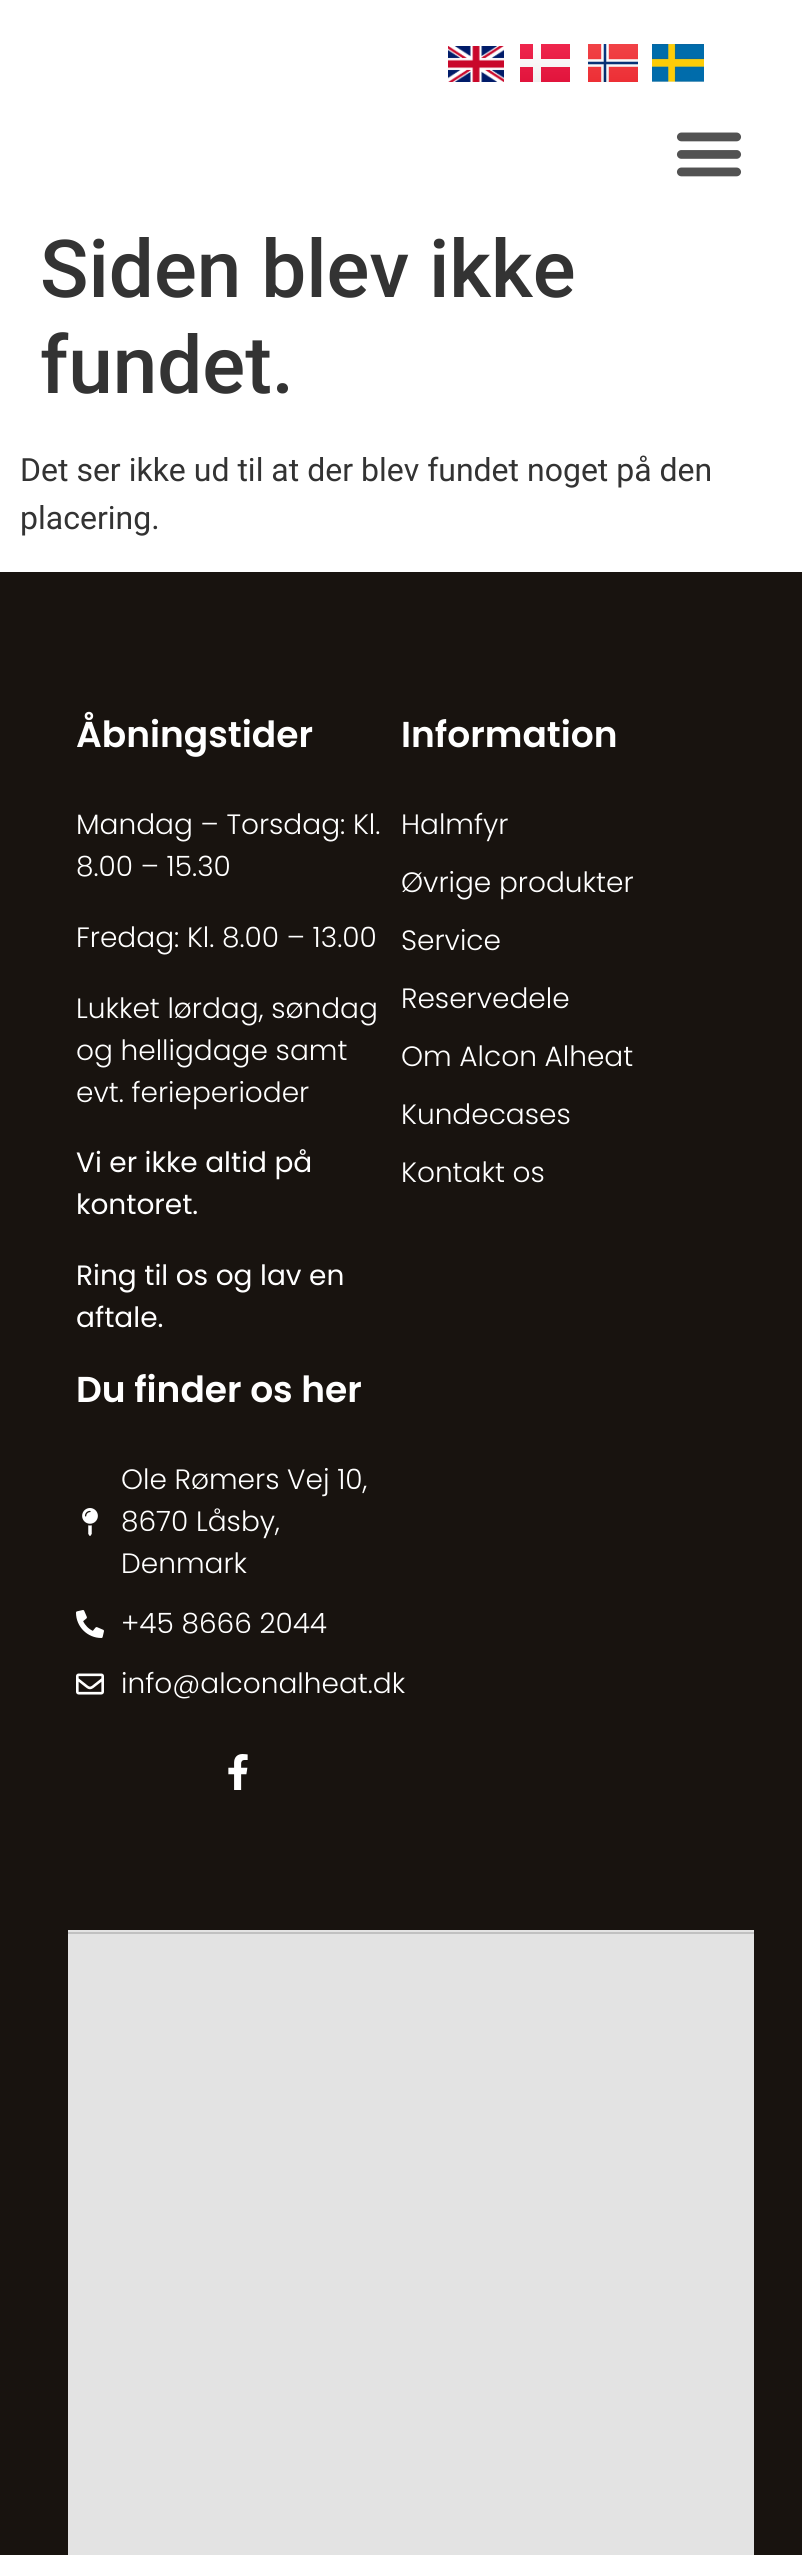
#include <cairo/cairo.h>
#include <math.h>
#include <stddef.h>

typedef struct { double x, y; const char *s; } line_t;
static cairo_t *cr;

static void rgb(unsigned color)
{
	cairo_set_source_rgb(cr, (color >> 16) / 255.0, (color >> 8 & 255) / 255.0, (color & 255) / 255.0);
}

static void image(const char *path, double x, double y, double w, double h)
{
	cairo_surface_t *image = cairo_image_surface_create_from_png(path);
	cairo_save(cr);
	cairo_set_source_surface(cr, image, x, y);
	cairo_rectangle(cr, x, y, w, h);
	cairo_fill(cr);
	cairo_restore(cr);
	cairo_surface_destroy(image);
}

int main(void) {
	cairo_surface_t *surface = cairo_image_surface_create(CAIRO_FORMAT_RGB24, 802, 2555);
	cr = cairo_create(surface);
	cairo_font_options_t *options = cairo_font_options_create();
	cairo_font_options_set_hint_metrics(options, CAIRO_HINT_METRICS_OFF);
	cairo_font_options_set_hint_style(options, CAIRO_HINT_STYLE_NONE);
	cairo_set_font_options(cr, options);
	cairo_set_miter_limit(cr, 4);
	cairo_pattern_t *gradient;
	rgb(0xffffff);
	cairo_paint(cr);
	image("img/1.png", 448, 46, 56, 36);
	gradient = cairo_pattern_create_linear(545, 44, 545, 82);
	cairo_pattern_add_color_stop_rgba(gradient, 0, 0.937, 0.149, 0.302, 1);
	cairo_pattern_add_color_stop_rgba(gradient, 1, 0.882, 0.078, 0.235, 1);
	cairo_set_source(cr, gradient);
	cairo_pattern_destroy(gradient);
	cairo_rectangle(cr, 520, 44, 50, 38);
	cairo_fill(cr);
	cairo_save(cr);
	cairo_rectangle(cr, 520, 44, 50, 38);
	cairo_clip(cr);
	gradient = cairo_pattern_create_linear(545, 44, 545, 82);
	cairo_pattern_add_color_stop_rgba(gradient, 0, 1, 1, 1, 1);
	cairo_pattern_add_color_stop_rgba(gradient, 1, 0.941, 0.941, 0.941, 1);
	cairo_set_source(cr, gradient);
	cairo_pattern_destroy(gradient);
	cairo_set_fill_rule(cr, CAIRO_FILL_RULE_EVEN_ODD);
	cairo_new_path(cr);
	cairo_move_to(cr, 518, 67);
	cairo_line_to(cr, 533, 67);
	cairo_line_to(cr, 533, 82);
	cairo_line_to(cr, 541, 82);
	cairo_line_to(cr, 541, 67);
	cairo_line_to(cr, 571, 67);
	cairo_line_to(cr, 571, 59);
	cairo_line_to(cr, 541, 59);
	cairo_line_to(cr, 541, 44);
	cairo_line_to(cr, 533, 44);
	cairo_line_to(cr, 533, 59);
	cairo_line_to(cr, 518, 59);
	cairo_close_path(cr);
	cairo_fill(cr);
	cairo_restore(cr);
	image("img/2.png", 588, 44, 50, 38);
	image("img/3.png", 652, 44, 52, 38);
	image("img/4.png", 676, 132, 66, 45);
	rgb(0x18130f);
	cairo_rectangle(cr, 0, 572, 802, 1983);
	cairo_fill(cr);
	image("img/5.png", 82, 1508, 16, 28);
	image("img/6.png", 76, 1610, 28, 28);
	image("img/7.png", 76, 1673, 28, 22);
	image("img/8.png", 228, 1754, 20, 36);
	image("img/9.png", 68, 1930, 686, 625);
	cairo_select_font_face(cr, "Roboto Medium", CAIRO_FONT_SLANT_NORMAL, CAIRO_FONT_WEIGHT_NORMAL);
	cairo_set_font_size(cr, 80);
	rgb(0x333333);
	cairo_move_to(cr, 40, 297);
	cairo_show_text(cr, "Siden blev ikke");
	cairo_move_to(cr, 40, 393);
	cairo_show_text(cr, "fundet.");
	cairo_select_font_face(cr, "Roboto", CAIRO_FONT_SLANT_NORMAL, CAIRO_FONT_WEIGHT_NORMAL);
	cairo_set_font_size(cr, 32);
	cairo_move_to(cr, 20, 481);
	cairo_show_text(cr, "Det ser ikke ud til at der blev fundet noget på den");
	cairo_move_to(cr, 20, 529);
	cairo_show_text(cr, "placering.");
	cairo_select_font_face(cr, "Poppins SemiBold", CAIRO_FONT_SLANT_NORMAL, CAIRO_FONT_WEIGHT_NORMAL);
	cairo_set_font_size(cr, 36);
	rgb(0xffffff);
	cairo_move_to(cr, 76, 747);
	cairo_show_text(cr, "Åbningstider");
	cairo_select_font_face(cr, "Poppins Light", CAIRO_FONT_SLANT_NORMAL, CAIRO_FONT_WEIGHT_NORMAL);
	cairo_set_font_size(cr, 28);
	{
		static const line_t items[] = {
			{76, 834, "Mandag – Torsdag: Kl."},
			{76, 876, "8.00 – 15.30"},
			{76, 947, "Fredag: Kl. 8.00 – 13.00"},
			{76, 1018, "Lukket lørdag, søndag"},
			{76, 1060, "og helligdage samt"},
			{76, 1102, "evt. ferieperioder"},
		};
		for (size_t i = 0; i < sizeof items / sizeof *items; i++) {
			cairo_move_to(cr, items[i].x, items[i].y);
			cairo_show_text(cr, items[i].s);
		}
	}
	cairo_select_font_face(cr, "Poppins", CAIRO_FONT_SLANT_NORMAL, CAIRO_FONT_WEIGHT_NORMAL);
	{
		static const line_t items[] = {
			{76, 1172, "Vi er ikke altid på"},
			{76, 1214, "kontoret."},
			{76, 1285, "Ring til os og lav en"},
			{76, 1327, "aftale."},
		};
		for (size_t i = 0; i < sizeof items / sizeof *items; i++) {
			cairo_move_to(cr, items[i].x, items[i].y);
			cairo_show_text(cr, items[i].s);
		}
	}
	cairo_select_font_face(cr, "Poppins SemiBold", CAIRO_FONT_SLANT_NORMAL, CAIRO_FONT_WEIGHT_NORMAL);
	cairo_set_font_size(cr, 36);
	cairo_move_to(cr, 401, 747);
	cairo_show_text(cr, "Information");
	cairo_select_font_face(cr, "Poppins Light", CAIRO_FONT_SLANT_NORMAL, CAIRO_FONT_WEIGHT_NORMAL);
	cairo_set_font_size(cr, 28);
	{
		static const line_t items[] = {
			{401, 834, "Halmfyr"},
			{401, 892, "Øvrige produkter"},
			{401, 950, "Service"},
			{401, 1008, "Reservedele"},
			{401, 1066, "Om Alcon Alheat"},
			{401, 1124, "Kundecases"},
			{401, 1182, "Kontakt os"},
		};
		for (size_t i = 0; i < sizeof items / sizeof *items; i++) {
			cairo_move_to(cr, items[i].x, items[i].y);
			cairo_show_text(cr, items[i].s);
		}
	}
	cairo_select_font_face(cr, "Poppins SemiBold", CAIRO_FONT_SLANT_NORMAL, CAIRO_FONT_WEIGHT_NORMAL);
	cairo_set_font_size(cr, 36);
	cairo_move_to(cr, 76, 1402);
	cairo_show_text(cr, "Du finder os her");
	cairo_select_font_face(cr, "Poppins Light", CAIRO_FONT_SLANT_NORMAL, CAIRO_FONT_WEIGHT_NORMAL);
	cairo_set_font_size(cr, 28);
	{
		static const line_t items[] = {
			{121, 1489, "Ole Rømers Vej 10,"},
			{121, 1531, "8670 Låsby,"},
			{121, 1573, "Denmark"},
			{121, 1633, "+45 8666 2044"},
			{121, 1693, "info@alconalheat.dk"},
		};
		for (size_t i = 0; i < sizeof items / sizeof *items; i++) {
			cairo_move_to(cr, items[i].x, items[i].y);
			cairo_show_text(cr, items[i].s);
		}
	}
	cairo_surface_write_to_png(surface, "page.png");
	cairo_font_options_destroy(options);
	cairo_destroy(cr);
	cairo_surface_destroy(surface);
	return 0;
}
